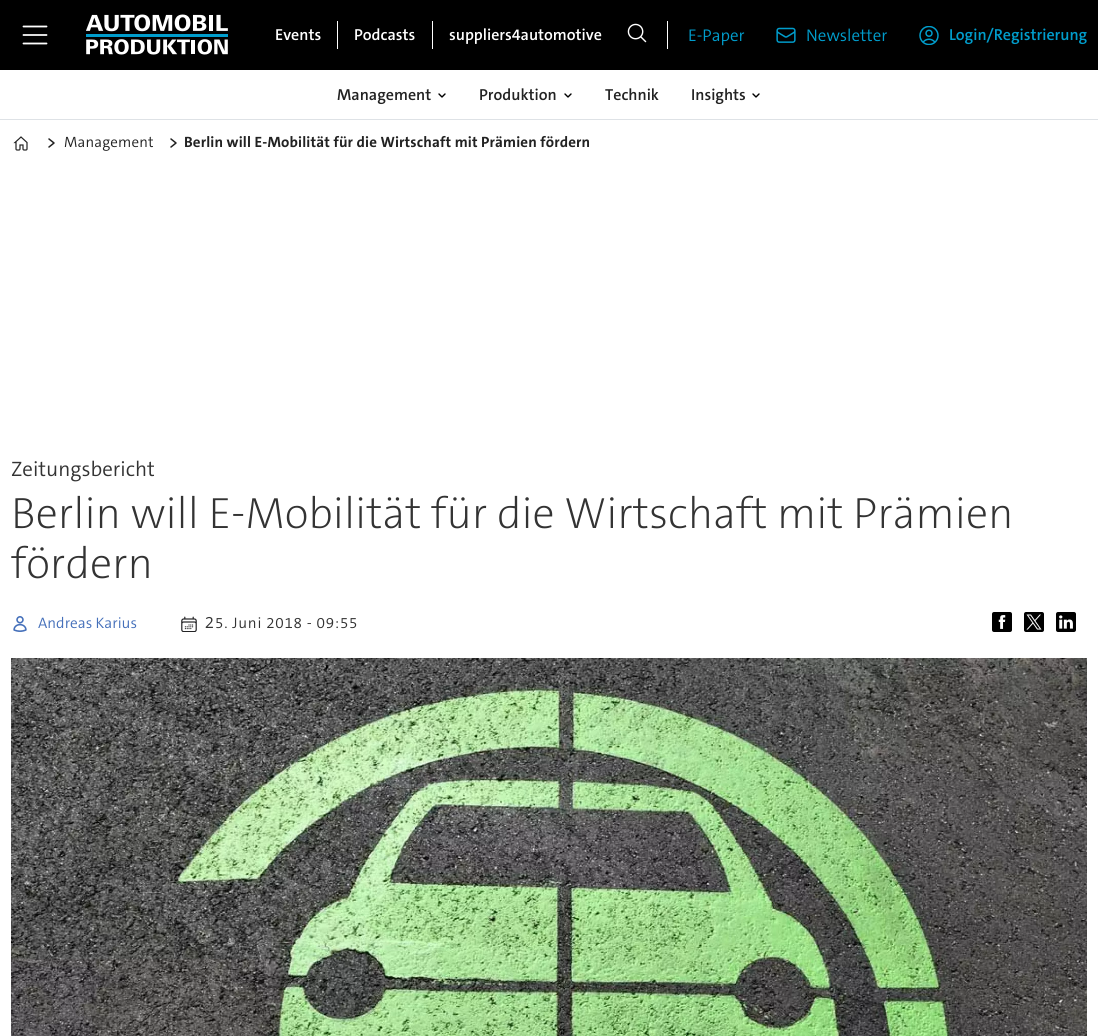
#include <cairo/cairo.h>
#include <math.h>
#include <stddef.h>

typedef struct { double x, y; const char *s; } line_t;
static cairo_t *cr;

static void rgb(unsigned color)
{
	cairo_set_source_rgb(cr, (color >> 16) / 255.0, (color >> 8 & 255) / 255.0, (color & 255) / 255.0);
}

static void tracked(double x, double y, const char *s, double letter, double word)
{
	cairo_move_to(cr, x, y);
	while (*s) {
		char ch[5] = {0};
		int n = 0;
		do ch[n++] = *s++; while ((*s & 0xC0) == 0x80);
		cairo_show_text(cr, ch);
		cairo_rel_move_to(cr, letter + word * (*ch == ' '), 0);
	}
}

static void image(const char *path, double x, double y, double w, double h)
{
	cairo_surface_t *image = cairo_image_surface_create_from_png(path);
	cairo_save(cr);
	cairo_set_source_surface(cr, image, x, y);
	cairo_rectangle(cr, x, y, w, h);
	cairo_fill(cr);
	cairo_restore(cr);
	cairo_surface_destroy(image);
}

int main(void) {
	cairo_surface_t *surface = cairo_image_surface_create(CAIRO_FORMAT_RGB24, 1098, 1036);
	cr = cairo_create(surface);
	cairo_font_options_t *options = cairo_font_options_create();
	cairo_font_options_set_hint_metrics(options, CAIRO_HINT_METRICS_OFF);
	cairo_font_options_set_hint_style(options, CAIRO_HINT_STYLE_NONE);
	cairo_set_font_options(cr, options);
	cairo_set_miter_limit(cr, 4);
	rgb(0xffffff);
	cairo_paint(cr);
	rgb(0x000000);
	cairo_rectangle(cr, 0, 0, 1098, 70);
	cairo_fill(cr);
	cairo_new_path(cr);
	cairo_move_to(cr, 23.5, 26.5);
	cairo_line_to(cr, 46.5, 26.5);
	cairo_move_to(cr, 23.5, 35);
	cairo_line_to(cr, 46.5, 35);
	cairo_move_to(cr, 23.5, 43.5);
	cairo_line_to(cr, 46.5, 43.5);
	rgb(0xffffff);
	cairo_set_line_width(cr, 1.8);
	cairo_set_line_cap(cr, CAIRO_LINE_CAP_ROUND);
	cairo_stroke(cr);
	image("img/1.png", 86, 14, 142, 41);
	cairo_rectangle(cr, 337, 21, 1, 28);
	cairo_fill(cr);
	cairo_rectangle(cr, 432, 21, 1, 28);
	cairo_fill(cr);
	image("img/2.png", 627, 23, 20, 20);
	cairo_rectangle(cr, 667, 21, 1, 28);
	cairo_fill(cr);
	image("img/3.png", 776, 27, 20, 16);
	image("img/4.png", 919, 26, 20, 19);
	rgb(0xdee2e6);
	cairo_rectangle(cr, 0, 119, 1098, 1);
	cairo_fill(cr);
	cairo_new_path(cr);
	cairo_move_to(cr, 439, 94);
	cairo_line_to(cr, 442, 97);
	cairo_line_to(cr, 445, 94);
	rgb(0x000000);
	cairo_set_line_width(cr, 1.4);
	cairo_set_line_join(cr, CAIRO_LINE_JOIN_ROUND);
	cairo_stroke(cr);
	cairo_new_path(cr);
	cairo_move_to(cr, 565, 94);
	cairo_line_to(cr, 568, 97);
	cairo_line_to(cr, 571, 94);
	cairo_stroke(cr);
	cairo_new_path(cr);
	cairo_move_to(cr, 753, 94);
	cairo_line_to(cr, 756, 97);
	cairo_line_to(cr, 759, 94);
	cairo_stroke(cr);
	image("img/5.png", 13, 136, 15, 15);
	cairo_new_path(cr);
	cairo_move_to(cr, 49, 139);
	cairo_line_to(cr, 54, 143);
	cairo_line_to(cr, 49, 147);
	rgb(0x222222);
	cairo_set_line_width(cr, 1.5);
	cairo_stroke(cr);
	cairo_new_path(cr);
	cairo_move_to(cr, 171, 139);
	cairo_line_to(cr, 176, 143);
	cairo_line_to(cr, 171, 147);
	cairo_stroke(cr);
	image("img/6.png", 13, 616, 14, 16);
	image("img/7.png", 181, 616, 16, 16);
	image("img/8.png", 992, 612, 20, 20);
	image("img/9.png", 1024, 612, 20, 20);
	image("img/10.png", 1056, 612, 20, 20);
	image("img/11.png", 11, 658, 1076, 378);
	cairo_select_font_face(cr, "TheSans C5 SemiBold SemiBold", CAIRO_FONT_SLANT_NORMAL, CAIRO_FONT_WEIGHT_NORMAL);
	cairo_set_font_size(cr, 16);
	rgb(0xffffff);
	{
		static const line_t items[] = {
			{275, 40, "Events"},
			{354, 40, "Podcasts"},
			{449, 40, "suppliers4automotive"},
		};
		for (size_t i = 0; i < sizeof items / sizeof *items; i++) {
			cairo_move_to(cr, items[i].x, items[i].y);
			cairo_show_text(cr, items[i].s);
		}
	}
	cairo_select_font_face(cr, "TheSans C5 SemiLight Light", CAIRO_FONT_SLANT_NORMAL, CAIRO_FONT_WEIGHT_NORMAL);
	cairo_set_font_size(cr, 17);
	rgb(0x009dcc);
	cairo_move_to(cr, 688, 41);
	cairo_show_text(cr, "E-Paper");
	cairo_move_to(cr, 806, 41);
	cairo_show_text(cr, "Newsletter");
	cairo_select_font_face(cr, "TheSans C5 SemiBold SemiBold", CAIRO_FONT_SLANT_NORMAL, CAIRO_FONT_WEIGHT_NORMAL);
	cairo_set_font_size(cr, 16);
	cairo_move_to(cr, 949, 40);
	cairo_show_text(cr, "Login/Registrierung");
	rgb(0x222222);
	{
		static const line_t items[] = {
			{337, 100, "Management"},
			{479, 100, "Produktion"},
			{605, 100, "Technik"},
			{691, 100, "Insights"},
		};
		for (size_t i = 0; i < sizeof items / sizeof *items; i++) {
			cairo_move_to(cr, items[i].x, items[i].y);
			cairo_show_text(cr, items[i].s);
		}
	}
	cairo_select_font_face(cr, "TheSans C5 SemiLight Light", CAIRO_FONT_SLANT_NORMAL, CAIRO_FONT_WEIGHT_NORMAL);
	cairo_set_font_size(cr, 15);
	tracked(64, 147, "Management", 0.15, 0);
	cairo_select_font_face(cr, "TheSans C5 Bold", CAIRO_FONT_SLANT_NORMAL, CAIRO_FONT_WEIGHT_BOLD);
	tracked(184, 147, "Berlin will E-Mobilität für die Wirtschaft mit Prämien fördern", 0.15, 0);
	cairo_select_font_face(cr, "TheSans C5 SemiLight Light", CAIRO_FONT_SLANT_NORMAL, CAIRO_FONT_WEIGHT_NORMAL);
	cairo_set_font_size(cr, 21);
	rgb(0x333333);
	cairo_move_to(cr, 11, 476);
	cairo_show_text(cr, "Zeitungsbericht");
	cairo_select_font_face(cr, "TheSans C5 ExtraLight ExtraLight", CAIRO_FONT_SLANT_NORMAL, CAIRO_FONT_WEIGHT_NORMAL);
	cairo_set_font_size(cr, 44);
	cairo_move_to(cr, 11, 528);
	cairo_show_text(cr, "Berlin will E-Mobilität für die Wirtschaft mit Prämien");
	cairo_move_to(cr, 11, 578);
	cairo_show_text(cr, "fördern");
	cairo_select_font_face(cr, "TheSans C5 SemiLight Light", CAIRO_FONT_SLANT_NORMAL, CAIRO_FONT_WEIGHT_NORMAL);
	cairo_set_font_size(cr, 15.25);
	rgb(0x4570ba);
	cairo_move_to(cr, 38, 628);
	cairo_show_text(cr, "Andreas Karius");
	cairo_select_font_face(cr, "Noto Sans", CAIRO_FONT_SLANT_NORMAL, CAIRO_FONT_WEIGHT_NORMAL);
	rgb(0x333333);
	tracked(205, 628, "2", 0.75, 0);
	cairo_select_font_face(cr, "TheSans C5 SemiLight Light", CAIRO_FONT_SLANT_NORMAL, CAIRO_FONT_WEIGHT_NORMAL);
	tracked(215, 628, "5. Juni 2018 - 09:55", 0.75, 0);
	cairo_surface_write_to_png(surface, "page.png");
	cairo_font_options_destroy(options);
	cairo_destroy(cr);
	cairo_surface_destroy(surface);
	return 0;
}
